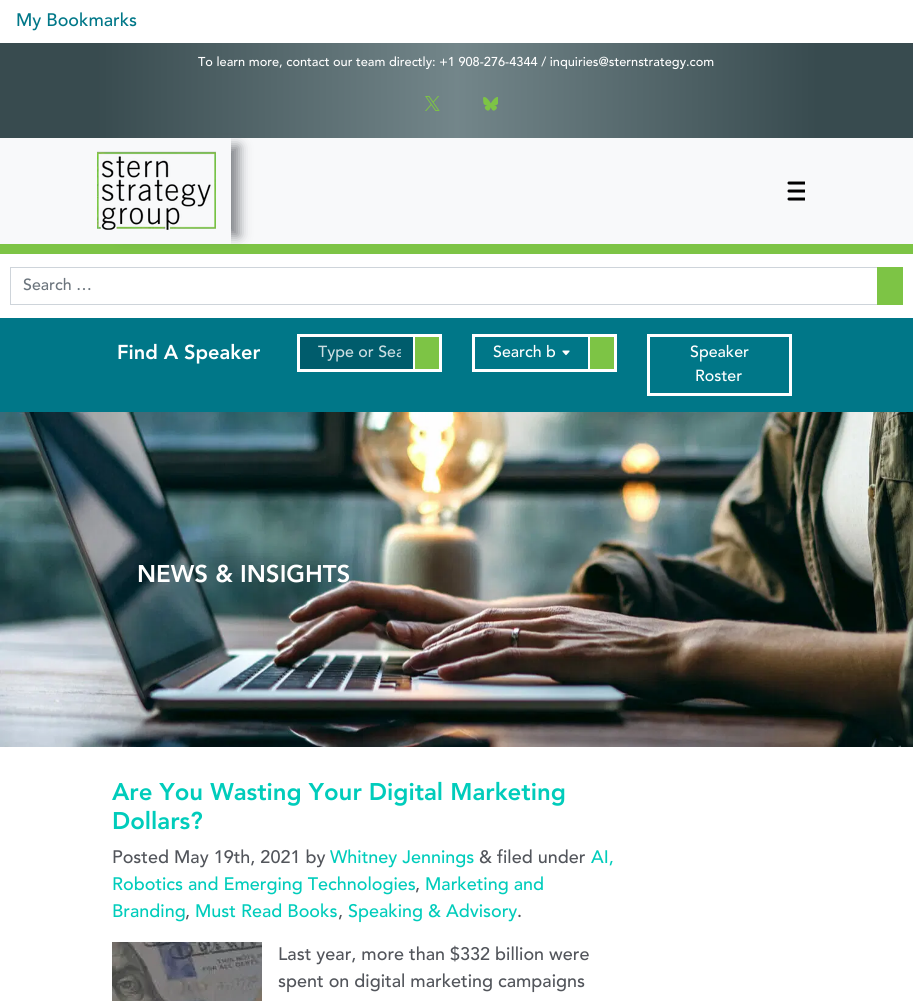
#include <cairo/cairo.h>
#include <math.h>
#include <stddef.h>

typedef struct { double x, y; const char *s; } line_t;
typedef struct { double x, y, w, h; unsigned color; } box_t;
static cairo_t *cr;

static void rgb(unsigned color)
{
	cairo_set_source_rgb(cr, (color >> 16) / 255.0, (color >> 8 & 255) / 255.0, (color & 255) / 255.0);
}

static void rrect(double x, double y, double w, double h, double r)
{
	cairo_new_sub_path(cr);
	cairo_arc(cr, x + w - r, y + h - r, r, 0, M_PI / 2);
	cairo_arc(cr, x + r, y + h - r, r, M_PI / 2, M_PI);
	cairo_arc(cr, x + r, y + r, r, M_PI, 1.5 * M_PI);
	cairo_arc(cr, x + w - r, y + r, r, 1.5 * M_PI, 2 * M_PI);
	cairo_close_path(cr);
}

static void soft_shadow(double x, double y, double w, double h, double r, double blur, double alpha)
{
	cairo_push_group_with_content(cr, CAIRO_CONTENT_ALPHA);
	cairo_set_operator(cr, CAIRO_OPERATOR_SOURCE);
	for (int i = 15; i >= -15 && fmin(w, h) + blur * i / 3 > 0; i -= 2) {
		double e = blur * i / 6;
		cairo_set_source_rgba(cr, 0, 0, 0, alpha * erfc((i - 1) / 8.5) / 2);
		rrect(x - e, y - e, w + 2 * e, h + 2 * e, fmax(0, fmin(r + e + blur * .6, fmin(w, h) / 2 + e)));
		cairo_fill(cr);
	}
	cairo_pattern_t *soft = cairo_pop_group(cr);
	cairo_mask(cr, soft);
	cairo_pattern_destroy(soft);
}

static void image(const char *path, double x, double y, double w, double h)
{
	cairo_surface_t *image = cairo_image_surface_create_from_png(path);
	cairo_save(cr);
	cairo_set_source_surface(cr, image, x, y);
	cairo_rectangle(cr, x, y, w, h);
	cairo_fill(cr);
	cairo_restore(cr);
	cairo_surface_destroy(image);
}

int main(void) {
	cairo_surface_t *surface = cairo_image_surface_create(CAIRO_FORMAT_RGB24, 913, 1001);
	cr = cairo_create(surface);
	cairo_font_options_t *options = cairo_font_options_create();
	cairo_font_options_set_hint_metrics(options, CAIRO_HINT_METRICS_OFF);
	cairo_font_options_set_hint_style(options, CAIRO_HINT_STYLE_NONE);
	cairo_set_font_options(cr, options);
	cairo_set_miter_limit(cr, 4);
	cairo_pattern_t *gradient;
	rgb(0xffffff);
	cairo_paint(cr);
	gradient = cairo_pattern_create_linear(97, 91, 817, 90);
	cairo_pattern_add_color_stop_rgba(gradient, 0, 0.22, 0.294, 0.31, 1);
	cairo_pattern_add_color_stop_rgba(gradient, 0.5, 0.451, 0.525, 0.541, 1);
	cairo_pattern_add_color_stop_rgba(gradient, 1, 0.22, 0.294, 0.31, 1);
	cairo_set_source(cr, gradient);
	cairo_pattern_destroy(gradient);
	cairo_rectangle(cr, 97, 43, 720, 95);
	cairo_fill(cr);
	rgb(0x384b4f);
	cairo_rectangle(cr, 817, 43, 96, 95);
	cairo_fill(cr);
	cairo_rectangle(cr, 0, 43, 97, 95);
	cairo_fill(cr);
	image("img/1.png", 425, 96, 15, 15);
	image("img/2.png", 483, 97, 15, 14);
	rgb(0xf8f9fa);
	cairo_rectangle(cr, 0, 138, 913, 106);
	cairo_fill(cr);
	rgb(0x7dc445);
	cairo_rectangle(cr, 0, 244, 913, 10);
	cairo_fill(cr);
	cairo_save(cr);
	cairo_set_fill_rule(cr, CAIRO_FILL_RULE_EVEN_ODD);
	cairo_new_path(cr);
	cairo_move_to(cr, 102, 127);
	cairo_line_to(cr, 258, 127);
	cairo_line_to(cr, 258, 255);
	cairo_line_to(cr, 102, 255);
	cairo_close_path(cr);
	cairo_move_to(cr, 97, 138);
	cairo_line_to(cr, 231, 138);
	cairo_line_to(cr, 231, 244);
	cairo_line_to(cr, 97, 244);
	cairo_close_path(cr);
	cairo_clip(cr);
	rgb(0x52555b);
	soft_shadow(121, 146, 118, 90, 0, 6, 0.7);
	cairo_restore(cr);
	image("img/3.png", 97, 151, 119, 79);
	cairo_save(cr);
	cairo_rectangle(cr, 785, 176, 20, 30);
	cairo_clip(cr);
	cairo_new_path(cr);
	cairo_move_to(cr, 789, 183);
	cairo_line_to(cr, 811, 183);
	cairo_move_to(cr, 789, 191);
	cairo_line_to(cr, 811, 191);
	cairo_move_to(cr, 789, 199);
	cairo_line_to(cr, 811, 199);
	rgb(0x000000);
	cairo_set_line_width(cr, 3);
	cairo_set_line_cap(cr, CAIRO_LINE_CAP_ROUND);
	cairo_stroke(cr);
	cairo_restore(cr);
	cairo_rectangle(cr, 10.5, 267.5, 867, 37);
	rgb(0xced4da);
	cairo_set_line_width(cr, 1);
	cairo_stroke(cr);
	{
		static const box_t items[] = {
			{877, 267, 26, 38, 0x7dc445},
			{802, 318, 111, 94, 0x007788},
			{0, 318, 802, 94, 0x007788},
		};
		for (size_t i = 0; i < sizeof items / sizeof *items; i++) {
			rgb(items[i].color);
			cairo_rectangle(cr, items[i].x, items[i].y, items[i].w, items[i].h);
			cairo_fill(cr);
		}
	}
	rgb(0x005c6c);
	cairo_rectangle(cr, 298.5, 335.5, 116, 35);
	cairo_fill_preserve(cr);
	rgb(0xffffff);
	cairo_set_line_width(cr, 3);
	cairo_stroke(cr);
	{
		static const box_t items[] = {
			{415, 337, 24, 32, 0x7dc445},
			{415, 334, 27, 3, 0xffffff},
			{439, 334, 3, 38, 0xffffff},
			{415, 369, 27, 3, 0xffffff},
		};
		for (size_t i = 0; i < sizeof items / sizeof *items; i++) {
			rgb(items[i].color);
			cairo_rectangle(cr, items[i].x, items[i].y, items[i].w, items[i].h);
			cairo_fill(cr);
		}
	}
	image("img/4.png", 562, 350, 8, 6);
	cairo_rectangle(cr, 473.5, 335.5, 116, 35);
	cairo_stroke(cr);
	{
		static const box_t items[] = {
			{590, 337, 24, 32, 0x7dc445},
			{590, 334, 27, 3, 0xffffff},
			{614, 334, 3, 38, 0xffffff},
			{590, 369, 27, 3, 0xffffff},
		};
		for (size_t i = 0; i < sizeof items / sizeof *items; i++) {
			rgb(items[i].color);
			cairo_rectangle(cr, items[i].x, items[i].y, items[i].w, items[i].h);
			cairo_fill(cr);
		}
	}
	cairo_rectangle(cr, 648.5, 335.5, 142, 59);
	cairo_stroke(cr);
	image("img/5.png", 0, 412, 913, 335);
	image("img/6.png", 112, 942, 150, 59);
	cairo_select_font_face(cr, "Avenir Medium", CAIRO_FONT_SLANT_NORMAL, CAIRO_FONT_WEIGHT_NORMAL);
	cairo_set_font_size(cr, 18);
	rgb(0x007788);
	cairo_move_to(cr, 16, 26);
	cairo_show_text(cr, "My Bookmarks");
	cairo_set_font_size(cr, 12.8);
	rgb(0xffffff);
	cairo_move_to(cr, 198, 66);
	cairo_show_text(cr, "To learn more, contact our team directly: +1 908-276-4344 / inquiries@sternstrategy.com");
	cairo_set_font_size(cr, 16);
	rgb(0x6c757d);
	cairo_move_to(cr, 23, 290);
	cairo_show_text(cr, "Search …");
	cairo_select_font_face(cr, "Avenir Black", CAIRO_FONT_SLANT_NORMAL, CAIRO_FONT_WEIGHT_NORMAL);
	cairo_set_font_size(cr, 20);
	rgb(0xffffff);
	cairo_move_to(cr, 117, 359);
	cairo_show_text(cr, "Find A Speaker");
	cairo_save(cr);
	cairo_rectangle(cr, 318, 344, 83, 19);
	cairo_clip(cr);
	cairo_select_font_face(cr, "Avenir Medium", CAIRO_FONT_SLANT_NORMAL, CAIRO_FONT_WEIGHT_NORMAL);
	cairo_set_font_size(cr, 16);
	rgb(0xccdee2);
	cairo_move_to(cr, 318, 357);
	cairo_show_text(cr, "Type or Sea");
	cairo_restore(cr);
	cairo_select_font_face(cr, "Avenir Medium", CAIRO_FONT_SLANT_NORMAL, CAIRO_FONT_WEIGHT_NORMAL);
	cairo_set_font_size(cr, 16);
	{
		static const line_t items[] = {
			{493, 357, "Search b"},
			{690, 357, "Speaker"},
			{695, 381, "Roster"},
		};
		for (size_t i = 0; i < sizeof items / sizeof *items; i++) {
			cairo_move_to(cr, items[i].x, items[i].y);
			cairo_show_text(cr, items[i].s);
		}
	}
	cairo_select_font_face(cr, "Avenir Black", CAIRO_FONT_SLANT_NORMAL, CAIRO_FONT_WEIGHT_NORMAL);
	cairo_set_font_size(cr, 24);
	cairo_move_to(cr, 137, 582);
	cairo_show_text(cr, "NEWS & INSIGHTS");
	rgb(0x00ccbb);
	cairo_move_to(cr, 112, 800);
	cairo_show_text(cr, "Are You Wasting Your Digital Marketing");
	cairo_move_to(cr, 112, 829);
	cairo_show_text(cr, "Dollars?");
	cairo_select_font_face(cr, "Avenir Medium", CAIRO_FONT_SLANT_NORMAL, CAIRO_FONT_WEIGHT_NORMAL);
	cairo_set_font_size(cr, 18);
	rgb(0x52555b);
	cairo_move_to(cr, 112, 863);
	cairo_show_text(cr, "Posted May 19th, 2021 by");
	rgb(0x00ccbb);
	cairo_move_to(cr, 330, 863);
	cairo_show_text(cr, "Whitney Jennings");
	rgb(0x52555b);
	cairo_move_to(cr, 479, 863);
	cairo_show_text(cr, "& filed under");
	rgb(0x00ccbb);
	cairo_move_to(cr, 591, 863);
	cairo_show_text(cr, "AI,");
	cairo_move_to(cr, 112, 890);
	cairo_show_text(cr, "Robotics and Emerging Technologies");
	rgb(0x52555b);
	cairo_move_to(cr, 415, 890);
	cairo_show_text(cr, ",");
	rgb(0x00ccbb);
	cairo_move_to(cr, 425, 890);
	cairo_show_text(cr, "Marketing and");
	cairo_move_to(cr, 112, 917);
	cairo_show_text(cr, "Branding");
	rgb(0x52555b);
	cairo_move_to(cr, 185, 917);
	cairo_show_text(cr, ",");
	rgb(0x00ccbb);
	cairo_move_to(cr, 195, 917);
	cairo_show_text(cr, "Must Read Books");
	rgb(0x52555b);
	cairo_move_to(cr, 338, 917);
	cairo_show_text(cr, ",");
	rgb(0x00ccbb);
	cairo_move_to(cr, 348, 917);
	cairo_show_text(cr, "Speaking & Advisory");
	rgb(0x52555b);
	{
		static const line_t items[] = {
			{517, 917, "."},
			{278, 960, "Last year, more than $332 billion were"},
			{278, 987, "spent on digital marketing campaigns"},
		};
		for (size_t i = 0; i < sizeof items / sizeof *items; i++) {
			cairo_move_to(cr, items[i].x, items[i].y);
			cairo_show_text(cr, items[i].s);
		}
	}
	cairo_surface_write_to_png(surface, "page.png");
	cairo_font_options_destroy(options);
	cairo_destroy(cr);
	cairo_surface_destroy(surface);
	return 0;
}
